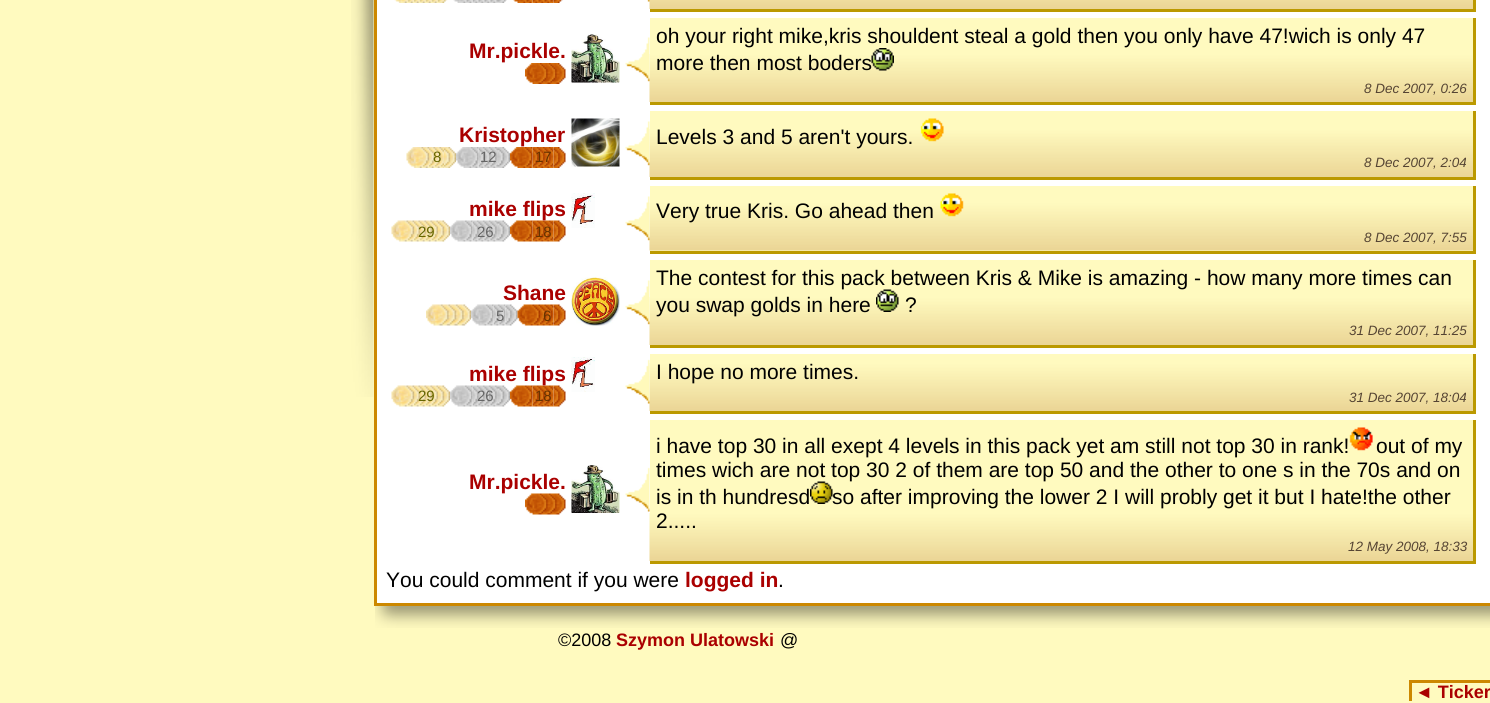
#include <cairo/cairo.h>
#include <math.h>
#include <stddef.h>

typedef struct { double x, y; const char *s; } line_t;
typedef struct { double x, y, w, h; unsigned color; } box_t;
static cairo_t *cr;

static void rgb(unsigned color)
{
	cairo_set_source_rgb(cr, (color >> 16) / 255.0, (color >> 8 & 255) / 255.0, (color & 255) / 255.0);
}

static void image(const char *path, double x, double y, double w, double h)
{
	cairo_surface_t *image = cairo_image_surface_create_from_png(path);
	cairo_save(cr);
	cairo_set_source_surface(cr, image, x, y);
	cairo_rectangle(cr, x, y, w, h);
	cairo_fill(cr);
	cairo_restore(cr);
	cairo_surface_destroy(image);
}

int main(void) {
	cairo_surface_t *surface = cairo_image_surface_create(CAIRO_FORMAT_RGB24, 1490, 703);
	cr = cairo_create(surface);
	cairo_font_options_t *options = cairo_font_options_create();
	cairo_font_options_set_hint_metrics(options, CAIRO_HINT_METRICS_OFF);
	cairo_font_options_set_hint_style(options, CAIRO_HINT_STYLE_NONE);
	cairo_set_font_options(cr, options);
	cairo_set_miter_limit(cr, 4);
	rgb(0xfffabf);
	cairo_paint(cr);
	image("img/1.png", 351, 0, 23, 397);
	{
		static const box_t items[] = {
			{377, 0, 1113, 603, 0xffffff},
			{374, 603, 1116, 3, 0xcc8800},
			{374, 0, 3, 606, 0xcc8800},
		};
		for (size_t i = 0; i < sizeof items / sizeof *items; i++) {
			rgb(items[i].color);
			cairo_rectangle(cr, items[i].x, items[i].y, items[i].w, items[i].h);
			cairo_fill(cr);
		}
	}
	image("img/2.png", 394, 0, 20, 3);
	image("img/3.png", 414, 0, 24, 3);
	image("img/4.png", 438, 0, 10, 3);
	image("img/5.png", 453, 0, 20, 3);
	image("img/6.png", 472, 0, 26, 3);
	image("img/7.png", 498, 0, 9, 3);
	image("img/8.png", 513, 0, 20, 3);
	image("img/9.png", 532, 0, 22, 3);
	image("img/10.png", 553, 0, 10, 3);
	image("img/12.png", 649, 0, 824, 9);
	image("img/11.png", 647, 0, 3, 2);
	rgb(0xbb9900);
	cairo_rectangle(cr, 1473, 0, 3, 12);
	cairo_fill(cr);
	cairo_rectangle(cr, 650, 9, 826, 3);
	cairo_fill(cr);
	image("img/13.png", 525, 63, 41, 21);
	image("img/14.png", 571, 34, 49, 49);
	image("img/16.png", 649, 54, 824, 48);
	image("img/15.png", 625, 37, 25, 45);
	{
		static const box_t items[] = {
			{650, 18, 823, 36, 0xfffabf},
			{1473, 18, 3, 87, 0xbb9900},
			{650, 102, 826, 3, 0xbb9900},
		};
		for (size_t i = 0; i < sizeof items / sizeof *items; i++) {
			rgb(items[i].color);
			cairo_rectangle(cr, items[i].x, items[i].y, items[i].w, items[i].h);
			cairo_fill(cr);
		}
	}
	image("img/17.png", 871, 48, 23, 23);
	image("img/18.png", 406, 147, 23, 21);
	image("img/19.png", 429, 147, 15, 21);
	image("img/20.png", 444, 147, 12, 21);
	image("img/21.png", 456, 147, 23, 21);
	image("img/22.png", 478, 147, 20, 21);
	image("img/23.png", 498, 147, 12, 21);
	image("img/24.png", 510, 147, 23, 21);
	image("img/25.png", 532, 147, 22, 21);
	image("img/26.png", 553, 147, 13, 21);
	image("img/27.png", 571, 118, 49, 49);
	image("img/16.png", 649, 129, 824, 48);
	image("img/28.png", 625, 121, 25, 45);
	{
		static const box_t items[] = {
			{650, 111, 823, 18, 0xfffabf},
			{1473, 111, 3, 69, 0xbb9900},
			{650, 177, 826, 3, 0xbb9900},
		};
		for (size_t i = 0; i < sizeof items / sizeof *items; i++) {
			rgb(items[i].color);
			cairo_rectangle(cr, items[i].x, items[i].y, items[i].w, items[i].h);
			cairo_fill(cr);
		}
	}
	image("img/29.png", 920, 118, 24, 24);
	image("img/30.png", 391, 220, 23, 22);
	image("img/31.png", 414, 220, 24, 22);
	image("img/32.png", 438, 220, 12, 22);
	image("img/33.png", 450, 220, 23, 22);
	image("img/34.png", 472, 220, 26, 22);
	image("img/35.png", 498, 220, 12, 22);
	image("img/36.png", 510, 220, 23, 22);
	image("img/37.png", 532, 220, 22, 22);
	image("img/38.png", 553, 220, 13, 22);
	image("img/39.png", 571, 193, 24, 35);
	rgb(0xfffabf);
	cairo_rectangle(cr, 650, 186, 823, 65);
	cairo_fill(cr);
	image("img/41.png", 649, 202, 824, 49);
	image("img/40.png", 625, 196, 25, 45);
	rgb(0xbb9900);
	cairo_rectangle(cr, 1473, 186, 3, 68);
	cairo_fill(cr);
	cairo_rectangle(cr, 650, 251, 826, 3);
	cairo_fill(cr);
	image("img/42.png", 940, 193, 24, 24);
	image("img/43.png", 426, 304, 45, 22);
	image("img/33.png", 471, 304, 23, 22);
	image("img/44.png", 493, 304, 13, 22);
	image("img/45.png", 505, 304, 13, 22);
	image("img/46.png", 517, 304, 23, 22);
	image("img/47.png", 540, 304, 14, 22);
	image("img/48.png", 553, 304, 13, 22);
	image("img/49.png", 571, 277, 49, 49);
	image("img/16.png", 649, 297, 824, 48);
	image("img/15.png", 625, 280, 25, 45);
	{
		static const box_t items[] = {
			{650, 260, 823, 37, 0xfffabf},
			{1473, 260, 3, 88, 0xbb9900},
			{650, 345, 826, 3, 0xbb9900},
		};
		for (size_t i = 0; i < sizeof items / sizeof *items; i++) {
			rgb(items[i].color);
			cairo_rectangle(cr, items[i].x, items[i].y, items[i].w, items[i].h);
			cairo_fill(cr);
		}
	}
	image("img/30.png", 391, 385, 23, 22);
	image("img/51.png", 414, 385, 24, 22);
	image("img/32.png", 438, 385, 12, 22);
	image("img/33.png", 450, 385, 23, 22);
	image("img/52.png", 472, 385, 26, 22);
	image("img/35.png", 498, 385, 12, 22);
	image("img/36.png", 510, 385, 23, 22);
	image("img/53.png", 532, 385, 22, 22);
	image("img/38.png", 553, 385, 13, 22);
	image("img/54.png", 571, 357, 24, 35);
	image("img/16.png", 649, 363, 824, 48);
	image("img/55.png", 625, 359, 25, 45);
	{
		static const box_t items[] = {
			{650, 354, 823, 9, 0xfffabf},
			{1473, 354, 3, 60, 0xbb9900},
			{650, 411, 826, 3, 0xbb9900},
		};
		for (size_t i = 0; i < sizeof items / sizeof *items; i++) {
			rgb(items[i].color);
			cairo_rectangle(cr, items[i].x, items[i].y, items[i].w, items[i].h);
			cairo_fill(cr);
		}
	}
	image("img/57.png", 571, 465, 49, 48);
	image("img/58.png", 625, 467, 25, 45);
	rgb(0xfffabf);
	cairo_rectangle(cr, 650, 420, 823, 93);
	cairo_fill(cr);
	image("img/16.png", 649, 513, 824, 48);
	rgb(0xbb9900);
	cairo_rectangle(cr, 1473, 420, 3, 144);
	cairo_fill(cr);
	cairo_rectangle(cr, 650, 561, 826, 3);
	cairo_fill(cr);
	image("img/59.png", 1349, 427, 24, 24);
	image("img/61.png", 399, 606, 1091, 22);
	image("img/62.png", 375, 606, 24, 22);
	rgb(0xcc8800);
	cairo_rectangle(cr, 1409, 680, 81, 3);
	cairo_fill(cr);
	cairo_rectangle(cr, 1409, 680, 3, 21);
	cairo_fill(cr);
	cairo_select_font_face(cr, "Liberation Sans", CAIRO_FONT_SLANT_NORMAL, CAIRO_FONT_WEIGHT_BOLD);
	cairo_set_font_size(cr, 21);
	rgb(0xaa0000);
	cairo_move_to(cr, 469, 58);
	cairo_show_text(cr, "Mr.pickle.");
	cairo_select_font_face(cr, "Liberation Sans", CAIRO_FONT_SLANT_NORMAL, CAIRO_FONT_WEIGHT_NORMAL);
	rgb(0x000000);
	cairo_move_to(cr, 656, 43);
	cairo_show_text(cr, "oh your right mike,kris shouldent steal a gold then you only have 47!wich is only 47");
	cairo_move_to(cr, 656, 70);
	cairo_show_text(cr, "more then most boders");
	cairo_select_font_face(cr, "Liberation Sans", CAIRO_FONT_SLANT_ITALIC, CAIRO_FONT_WEIGHT_NORMAL);
	cairo_set_font_size(cr, 13.5);
	rgb(0x554433);
	cairo_move_to(cr, 1364, 93);
	cairo_show_text(cr, "8 Dec 2007, 0:26");
	cairo_select_font_face(cr, "Liberation Sans", CAIRO_FONT_SLANT_NORMAL, CAIRO_FONT_WEIGHT_BOLD);
	cairo_set_font_size(cr, 21);
	rgb(0xaa0000);
	cairo_move_to(cr, 459, 142);
	cairo_show_text(cr, "Kristopher");
	cairo_select_font_face(cr, "Liberation Sans", CAIRO_FONT_SLANT_NORMAL, CAIRO_FONT_WEIGHT_NORMAL);
	cairo_set_font_size(cr, 15);
	rgb(0x666600);
	cairo_move_to(cr, 433, 162);
	cairo_show_text(cr, "8");
	rgb(0x666666);
	cairo_move_to(cr, 480, 162);
	cairo_show_text(cr, "12");
	rgb(0x663300);
	cairo_move_to(cr, 535, 162);
	cairo_show_text(cr, "17");
	cairo_set_font_size(cr, 21);
	rgb(0x000000);
	cairo_move_to(cr, 656, 144);
	cairo_show_text(cr, "Levels 3 and 5 aren't yours.");
	cairo_select_font_face(cr, "Liberation Sans", CAIRO_FONT_SLANT_ITALIC, CAIRO_FONT_WEIGHT_NORMAL);
	cairo_set_font_size(cr, 13.5);
	rgb(0x554433);
	cairo_move_to(cr, 1364, 167);
	cairo_show_text(cr, "8 Dec 2007, 2:04");
	cairo_select_font_face(cr, "Liberation Sans", CAIRO_FONT_SLANT_NORMAL, CAIRO_FONT_WEIGHT_BOLD);
	cairo_set_font_size(cr, 21);
	rgb(0xaa0000);
	cairo_move_to(cr, 469, 216);
	cairo_show_text(cr, "mike flips");
	cairo_select_font_face(cr, "Liberation Sans", CAIRO_FONT_SLANT_NORMAL, CAIRO_FONT_WEIGHT_NORMAL);
	cairo_set_font_size(cr, 15);
	rgb(0x666600);
	cairo_move_to(cr, 418, 237);
	cairo_show_text(cr, "29");
	rgb(0x666666);
	cairo_move_to(cr, 477, 237);
	cairo_show_text(cr, "26");
	rgb(0x663300);
	cairo_move_to(cr, 535, 237);
	cairo_show_text(cr, "18");
	cairo_set_font_size(cr, 21);
	rgb(0x000000);
	cairo_move_to(cr, 656, 218);
	cairo_show_text(cr, "Very true Kris. Go ahead then");
	cairo_select_font_face(cr, "Liberation Sans", CAIRO_FONT_SLANT_ITALIC, CAIRO_FONT_WEIGHT_NORMAL);
	cairo_set_font_size(cr, 13.5);
	rgb(0x554433);
	cairo_move_to(cr, 1364, 242);
	cairo_show_text(cr, "8 Dec 2007, 7:55");
	cairo_select_font_face(cr, "Liberation Sans", CAIRO_FONT_SLANT_NORMAL, CAIRO_FONT_WEIGHT_BOLD);
	cairo_set_font_size(cr, 21);
	rgb(0xaa0000);
	cairo_move_to(cr, 503, 300);
	cairo_show_text(cr, "Shane");
	cairo_select_font_face(cr, "Liberation Sans", CAIRO_FONT_SLANT_NORMAL, CAIRO_FONT_WEIGHT_NORMAL);
	cairo_set_font_size(cr, 15);
	rgb(0x666666);
	cairo_move_to(cr, 496, 321);
	cairo_show_text(cr, "5");
	rgb(0x663300);
	cairo_move_to(cr, 543, 321);
	cairo_show_text(cr, "6");
	cairo_set_font_size(cr, 21);
	rgb(0x000000);
	cairo_move_to(cr, 656, 285);
	cairo_show_text(cr, "The contest for this pack between Kris & Mike is amazing - how many more times can");
	cairo_move_to(cr, 656, 312);
	cairo_show_text(cr, "you swap golds in here");
	image("img/50.png", 876, 289, 23, 23);
	cairo_move_to(cr, 905, 312);
	cairo_show_text(cr, "?");
	cairo_select_font_face(cr, "Liberation Sans", CAIRO_FONT_SLANT_ITALIC, CAIRO_FONT_WEIGHT_NORMAL);
	cairo_set_font_size(cr, 13.5);
	rgb(0x554433);
	cairo_move_to(cr, 1349, 335);
	cairo_show_text(cr, "31 Dec 2007, 11:25");
	cairo_select_font_face(cr, "Liberation Sans", CAIRO_FONT_SLANT_NORMAL, CAIRO_FONT_WEIGHT_BOLD);
	cairo_set_font_size(cr, 21);
	rgb(0xaa0000);
	cairo_move_to(cr, 469, 381);
	cairo_show_text(cr, "mike flips");
	cairo_select_font_face(cr, "Liberation Sans", CAIRO_FONT_SLANT_NORMAL, CAIRO_FONT_WEIGHT_NORMAL);
	cairo_set_font_size(cr, 15);
	rgb(0x666600);
	cairo_move_to(cr, 418, 401);
	cairo_show_text(cr, "29");
	rgb(0x666666);
	cairo_move_to(cr, 477, 401);
	cairo_show_text(cr, "26");
	rgb(0x663300);
	cairo_move_to(cr, 535, 401);
	cairo_show_text(cr, "18");
	cairo_set_font_size(cr, 21);
	rgb(0x000000);
	cairo_move_to(cr, 656, 379);
	cairo_show_text(cr, "I hope no more times.");
	cairo_select_font_face(cr, "Liberation Sans", CAIRO_FONT_SLANT_ITALIC, CAIRO_FONT_WEIGHT_NORMAL);
	cairo_set_font_size(cr, 13.5);
	rgb(0x554433);
	cairo_move_to(cr, 1349, 402);
	cairo_show_text(cr, "31 Dec 2007, 18:04");
	cairo_select_font_face(cr, "Liberation Sans", CAIRO_FONT_SLANT_NORMAL, CAIRO_FONT_WEIGHT_BOLD);
	cairo_set_font_size(cr, 21);
	rgb(0xaa0000);
	cairo_move_to(cr, 469, 489);
	cairo_show_text(cr, "Mr.pickle.");
	image("img/56.png", 525, 493, 41, 22);
	cairo_select_font_face(cr, "Liberation Sans", CAIRO_FONT_SLANT_NORMAL, CAIRO_FONT_WEIGHT_NORMAL);
	rgb(0x000000);
	{
		static const line_t items[] = {
			{656, 453, "i have top 30 in all exept 4 levels in this pack yet am still not top 30 in rank!"},
			{1376, 453, "out of my"},
			{656, 477, "times wich are not top 30 2 of them are top 50 and the other to one s in the 70s and on"},
			{656, 504, "is in th hundresd"},
		};
		for (size_t i = 0; i < sizeof items / sizeof *items; i++) {
			cairo_move_to(cr, items[i].x, items[i].y);
			cairo_show_text(cr, items[i].s);
		}
	}
	image("img/60.png", 810, 481, 23, 23);
	cairo_move_to(cr, 832, 504);
	cairo_show_text(cr, "so after improving the lower 2 I will probly get it but I hate!the other");
	cairo_move_to(cr, 656, 528);
	cairo_show_text(cr, "2.....");
	cairo_select_font_face(cr, "Liberation Sans", CAIRO_FONT_SLANT_ITALIC, CAIRO_FONT_WEIGHT_NORMAL);
	cairo_set_font_size(cr, 13.5);
	rgb(0x554433);
	cairo_move_to(cr, 1348, 551);
	cairo_show_text(cr, "12 May 2008, 18:33");
	cairo_select_font_face(cr, "Liberation Sans", CAIRO_FONT_SLANT_NORMAL, CAIRO_FONT_WEIGHT_NORMAL);
	cairo_set_font_size(cr, 21);
	rgb(0x000000);
	cairo_move_to(cr, 386, 587);
	cairo_show_text(cr, "You could comment if you were");
	cairo_select_font_face(cr, "Liberation Sans", CAIRO_FONT_SLANT_NORMAL, CAIRO_FONT_WEIGHT_BOLD);
	rgb(0xaa0000);
	cairo_move_to(cr, 685, 587);
	cairo_show_text(cr, "logged in");
	cairo_select_font_face(cr, "Liberation Sans", CAIRO_FONT_SLANT_NORMAL, CAIRO_FONT_WEIGHT_NORMAL);
	rgb(0x000000);
	cairo_move_to(cr, 778, 587);
	cairo_show_text(cr, ".");
	cairo_set_font_size(cr, 18);
	cairo_move_to(cr, 558, 646);
	cairo_show_text(cr, "©2008");
	cairo_select_font_face(cr, "Liberation Sans", CAIRO_FONT_SLANT_NORMAL, CAIRO_FONT_WEIGHT_BOLD);
	rgb(0xaa0000);
	cairo_move_to(cr, 616, 646);
	cairo_show_text(cr, "Szymon Ulatowski");
	cairo_select_font_face(cr, "Liberation Sans", CAIRO_FONT_SLANT_NORMAL, CAIRO_FONT_WEIGHT_NORMAL);
	rgb(0x000000);
	cairo_move_to(cr, 780, 646);
	cairo_show_text(cr, "@");
	cairo_select_font_face(cr, "Liberation Sans", CAIRO_FONT_SLANT_NORMAL, CAIRO_FONT_WEIGHT_BOLD);
	rgb(0xaa0000);
	cairo_move_to(cr, 1415, 698);
	cairo_show_text(cr, "◄ Ticker");
	cairo_surface_write_to_png(surface, "page.png");
	cairo_font_options_destroy(options);
	cairo_destroy(cr);
	cairo_surface_destroy(surface);
	return 0;
}
